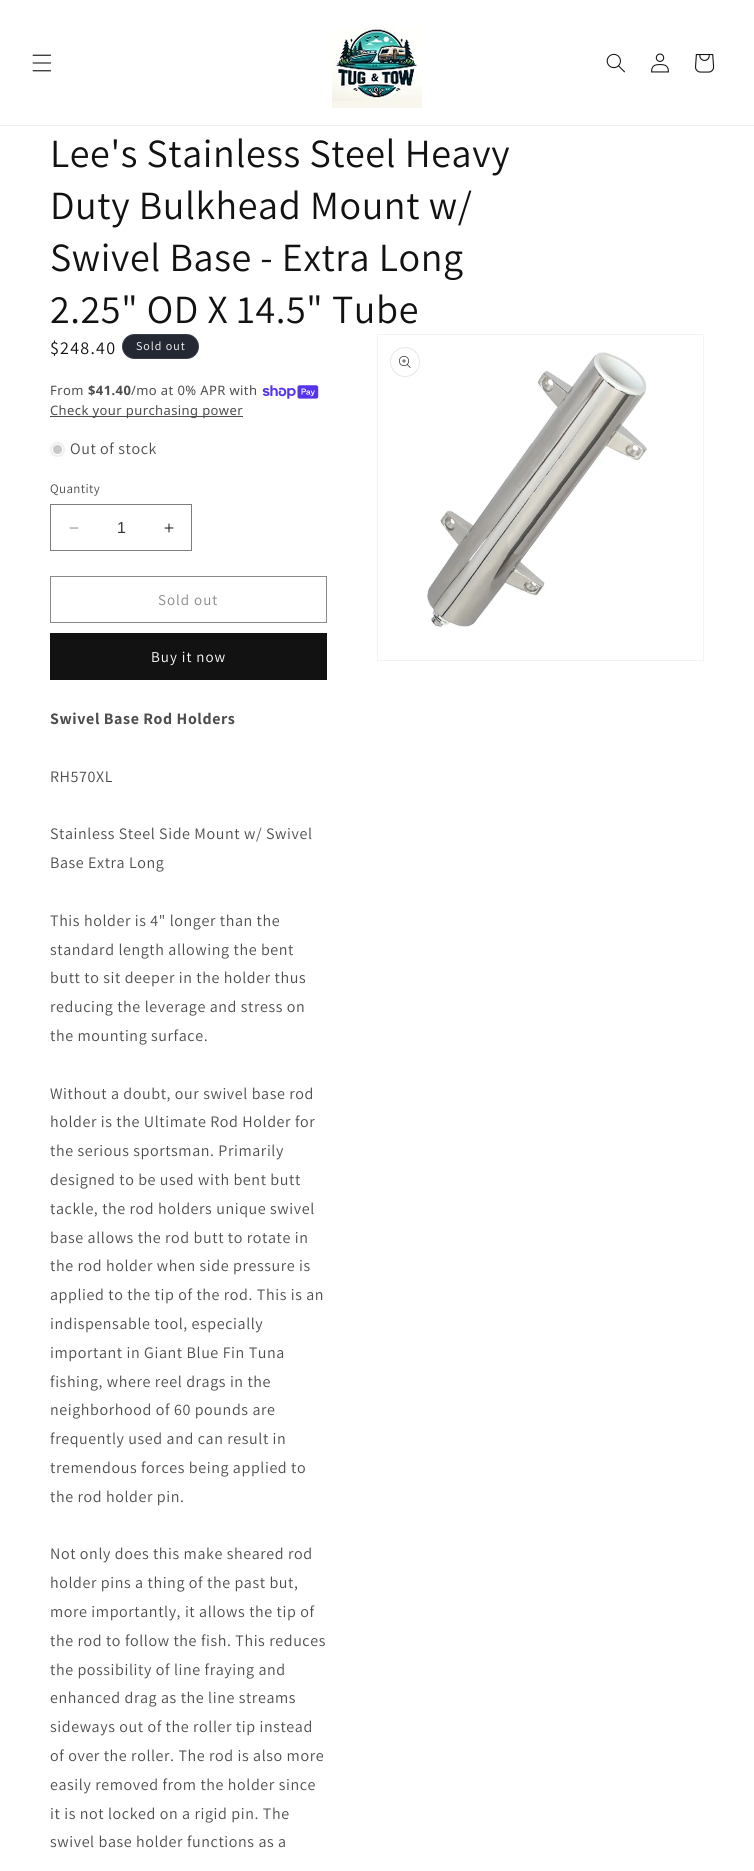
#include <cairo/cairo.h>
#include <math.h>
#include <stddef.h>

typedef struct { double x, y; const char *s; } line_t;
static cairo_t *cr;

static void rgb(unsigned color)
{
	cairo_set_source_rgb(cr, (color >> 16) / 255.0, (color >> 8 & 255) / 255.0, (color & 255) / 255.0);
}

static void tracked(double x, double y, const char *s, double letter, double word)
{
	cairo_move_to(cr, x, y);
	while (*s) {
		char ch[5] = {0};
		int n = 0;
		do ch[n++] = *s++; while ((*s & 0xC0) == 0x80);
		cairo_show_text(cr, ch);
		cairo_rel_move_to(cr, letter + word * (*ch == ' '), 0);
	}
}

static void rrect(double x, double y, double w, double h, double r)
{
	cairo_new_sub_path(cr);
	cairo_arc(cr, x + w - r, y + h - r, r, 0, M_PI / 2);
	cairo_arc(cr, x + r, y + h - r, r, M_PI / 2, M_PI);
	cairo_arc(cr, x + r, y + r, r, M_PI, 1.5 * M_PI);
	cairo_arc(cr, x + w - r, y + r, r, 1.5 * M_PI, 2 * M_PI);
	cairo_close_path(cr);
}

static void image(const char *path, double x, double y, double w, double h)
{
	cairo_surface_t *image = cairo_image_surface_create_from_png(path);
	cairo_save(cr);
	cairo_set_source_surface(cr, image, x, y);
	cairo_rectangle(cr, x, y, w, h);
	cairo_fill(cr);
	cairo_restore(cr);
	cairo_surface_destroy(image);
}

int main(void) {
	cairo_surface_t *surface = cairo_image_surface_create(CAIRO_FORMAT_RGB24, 754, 1871);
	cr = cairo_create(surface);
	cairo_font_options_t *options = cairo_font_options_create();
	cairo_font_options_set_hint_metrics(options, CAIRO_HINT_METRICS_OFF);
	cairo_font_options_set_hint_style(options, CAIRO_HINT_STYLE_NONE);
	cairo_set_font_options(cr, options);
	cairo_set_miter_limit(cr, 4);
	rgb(0xffffff);
	cairo_paint(cr);
	rgb(0xececec);
	cairo_rectangle(cr, 0, 125, 754, 1);
	cairo_fill(cr);
	image("img/1.png", 32, 54, 20, 18);
	image("img/2.png", 332, 26, 90, 82);
	image("img/3.png", 606, 53, 19, 20);
	image("img/4.png", 651, 53, 18, 20);
	image("img/5.png", 695, 54, 20, 19);
	rgb(0x242833);
	rrect(122, 334, 77, 25, 12.5);
	cairo_fill(cr);
	rrect(122.5, 334.5, 76, 24, 12);
	cairo_set_source_rgba(cr, 1, 1, 1, 0.1);
	cairo_set_line_width(cr, 1);
	cairo_stroke(cr);
	image("img/6.png", 262, 385, 57, 14);
	rgb(0x4d4d4d);
	cairo_rectangle(cr, 50, 416, 193, 1);
	cairo_fill(cr);
	rgb(0xefefef);
	cairo_arc(cr, 57.5, 449.5, 7.5, 0, 2 * M_PI);
	cairo_fill(cr);
	rgb(0xc8c8c8);
	cairo_arc(cr, 57.5, 449.5, 5, 0, 2 * M_PI);
	cairo_fill_preserve(cr);
	rgb(0xffffff);
	cairo_stroke(cr);
	image("img/7.png", 69, 527, 10, 2);
	image("img/8.png", 164, 523, 10, 10);
	cairo_rectangle(cr, 50.5, 504.5, 141, 46);
	rgb(0x7d7d7d);
	cairo_stroke(cr);
	cairo_rectangle(cr, 50.5, 576.5, 276, 46);
	rgb(0x898989);
	cairo_stroke(cr);
	rgb(0x121212);
	cairo_rectangle(cr, 50, 633, 277, 47);
	cairo_fill(cr);
	cairo_rectangle(cr, 377.5, 334.5, 326, 326);
	rgb(0xf3f3f3);
	cairo_stroke(cr);
	cairo_arc(cr, 405, 362, 14.5, 0, 2 * M_PI);
	rgb(0xe7e7e7);
	cairo_stroke(cr);
	image("img/9.png", 399, 356, 12, 12);
	image("img/10.png", 427, 352, 221, 276);
	cairo_select_font_face(cr, "Assistant", CAIRO_FONT_SLANT_NORMAL, CAIRO_FONT_WEIGHT_NORMAL);
	cairo_set_font_size(cr, 40);
	rgb(0x121212);
	{
		static const line_t items[] = {
			{50, 167, "Lee's Stainless Steel Heavy"},
			{50, 219, "Duty Bulkhead Mount w/"},
			{50, 271, "Swivel Base - Extra Long"},
			{50, 323, "2.25\" OD X 14.5\" Tube"},
		};
		for (size_t i = 0; i < sizeof items / sizeof *items; i++) {
			tracked(items[i].x, items[i].y, items[i].s, 0.6, 0);
		}
	}
	cairo_set_font_size(cr, 18);
	tracked(50, 354, "$248.40", 1.25, 0);
	cairo_set_font_size(cr, 12);
	rgb(0xffffff);
	tracked(136, 350, "Sold out", 1, 0);
	cairo_select_font_face(cr, "Noto Sans", CAIRO_FONT_SLANT_NORMAL, CAIRO_FONT_WEIGHT_NORMAL);
	cairo_set_font_size(cr, 13);
	rgb(0x4d4d4d);
	tracked(50, 395, "From", 0.4, 0);
	cairo_select_font_face(cr, "Noto Sans", CAIRO_FONT_SLANT_NORMAL, CAIRO_FONT_WEIGHT_BOLD);
	tracked(88, 395, "$41.40", 0.4, 0);
	cairo_select_font_face(cr, "Noto Sans", CAIRO_FONT_SLANT_NORMAL, CAIRO_FONT_WEIGHT_NORMAL);
	tracked(131, 395, "/mo at 0% APR with", 0.4, 0);
	tracked(50, 415, "Check your purchasing power", 0.4, 0);
	cairo_select_font_face(cr, "Assistant", CAIRO_FONT_SLANT_NORMAL, CAIRO_FONT_WEIGHT_NORMAL);
	cairo_set_font_size(cr, 16);
	tracked(70, 454, "Out of stock", 0.6, 0);
	cairo_set_font_size(cr, 13);
	tracked(50, 493, "Quantity", 0.4, 0);
	cairo_select_font_face(cr, "Liberation Sans", CAIRO_FONT_SLANT_NORMAL, CAIRO_FONT_WEIGHT_NORMAL);
	cairo_set_font_size(cr, 16);
	rgb(0x363636);
	cairo_move_to(cr, 117, 533);
	cairo_show_text(cr, "1");
	cairo_select_font_face(cr, "Assistant", CAIRO_FONT_SLANT_NORMAL, CAIRO_FONT_WEIGHT_NORMAL);
	cairo_set_font_size(cr, 15);
	rgb(0x898989);
	tracked(158, 605, "Sold out", 1, 0);
	rgb(0xffffff);
	tracked(151, 662, "Buy it now", 1, 0);
	cairo_select_font_face(cr, "Assistant", CAIRO_FONT_SLANT_NORMAL, CAIRO_FONT_WEIGHT_BOLD);
	cairo_set_font_size(cr, 16);
	rgb(0x4d4d4d);
	tracked(50, 724, "Swivel Base Rod Holders", 0.6, 0);
	cairo_select_font_face(cr, "Assistant", CAIRO_FONT_SLANT_NORMAL, CAIRO_FONT_WEIGHT_NORMAL);
	{
		static const line_t items[] = {
			{50, 782, "RH570XL"},
			{50, 839, "Stainless Steel Side Mount w/ Swivel"},
			{50, 868, "Base Extra Long"},
			{50, 926, "This holder is 4\" longer than the"},
			{50, 955, "standard length allowing the bent"},
			{50, 983, "butt to sit deeper in the holder thus"},
			{50, 1012, "reducing the leverage and stress on"},
			{50, 1041, "the mounting surface."},
			{50, 1099, "Without a doubt, our swivel base rod"},
			{50, 1127, "holder is the Ultimate Rod Holder for"},
			{50, 1156, "the serious sportsman. Primarily"},
			{50, 1185, "designed to be used with bent butt"},
			{50, 1214, "tackle, the rod holders unique swivel"},
			{50, 1243, "base allows the rod butt to rotate in"},
			{50, 1271, "the rod holder when side pressure is"},
			{50, 1300, "applied to the tip of the rod. This is an"},
			{50, 1329, "indispensable tool, especially"},
			{50, 1358, "important in Giant Blue Fin Tuna"},
			{50, 1387, "fishing, where reel drags in the"},
			{50, 1415, "neighborhood of 60 pounds are"},
			{50, 1444, "frequently used and can result in"},
			{50, 1473, "tremendous forces being applied to"},
			{50, 1502, "the rod holder pin."},
			{50, 1559, "Not only does this make sheared rod"},
			{50, 1588, "holder pins a thing of the past but,"},
			{50, 1617, "more importantly, it allows the tip of"},
			{50, 1646, "the rod to follow the fish. This reduces"},
			{50, 1675, "the possibility of line fraying and"},
			{50, 1703, "enhanced drag as the line streams"},
			{50, 1732, "sideways out of the roller tip instead"},
			{50, 1761, "of over the roller. The rod is also more"},
			{50, 1790, "easily removed from the holder since"},
			{50, 1819, "it is not locked on a rigid pin. The"},
			{50, 1847, "swivel base holder functions as a"},
		};
		for (size_t i = 0; i < sizeof items / sizeof *items; i++) {
			tracked(items[i].x, items[i].y, items[i].s, 0.6, 0);
		}
	}
	cairo_surface_write_to_png(surface, "page.png");
	cairo_font_options_destroy(options);
	cairo_destroy(cr);
	cairo_surface_destroy(surface);
	return 0;
}
